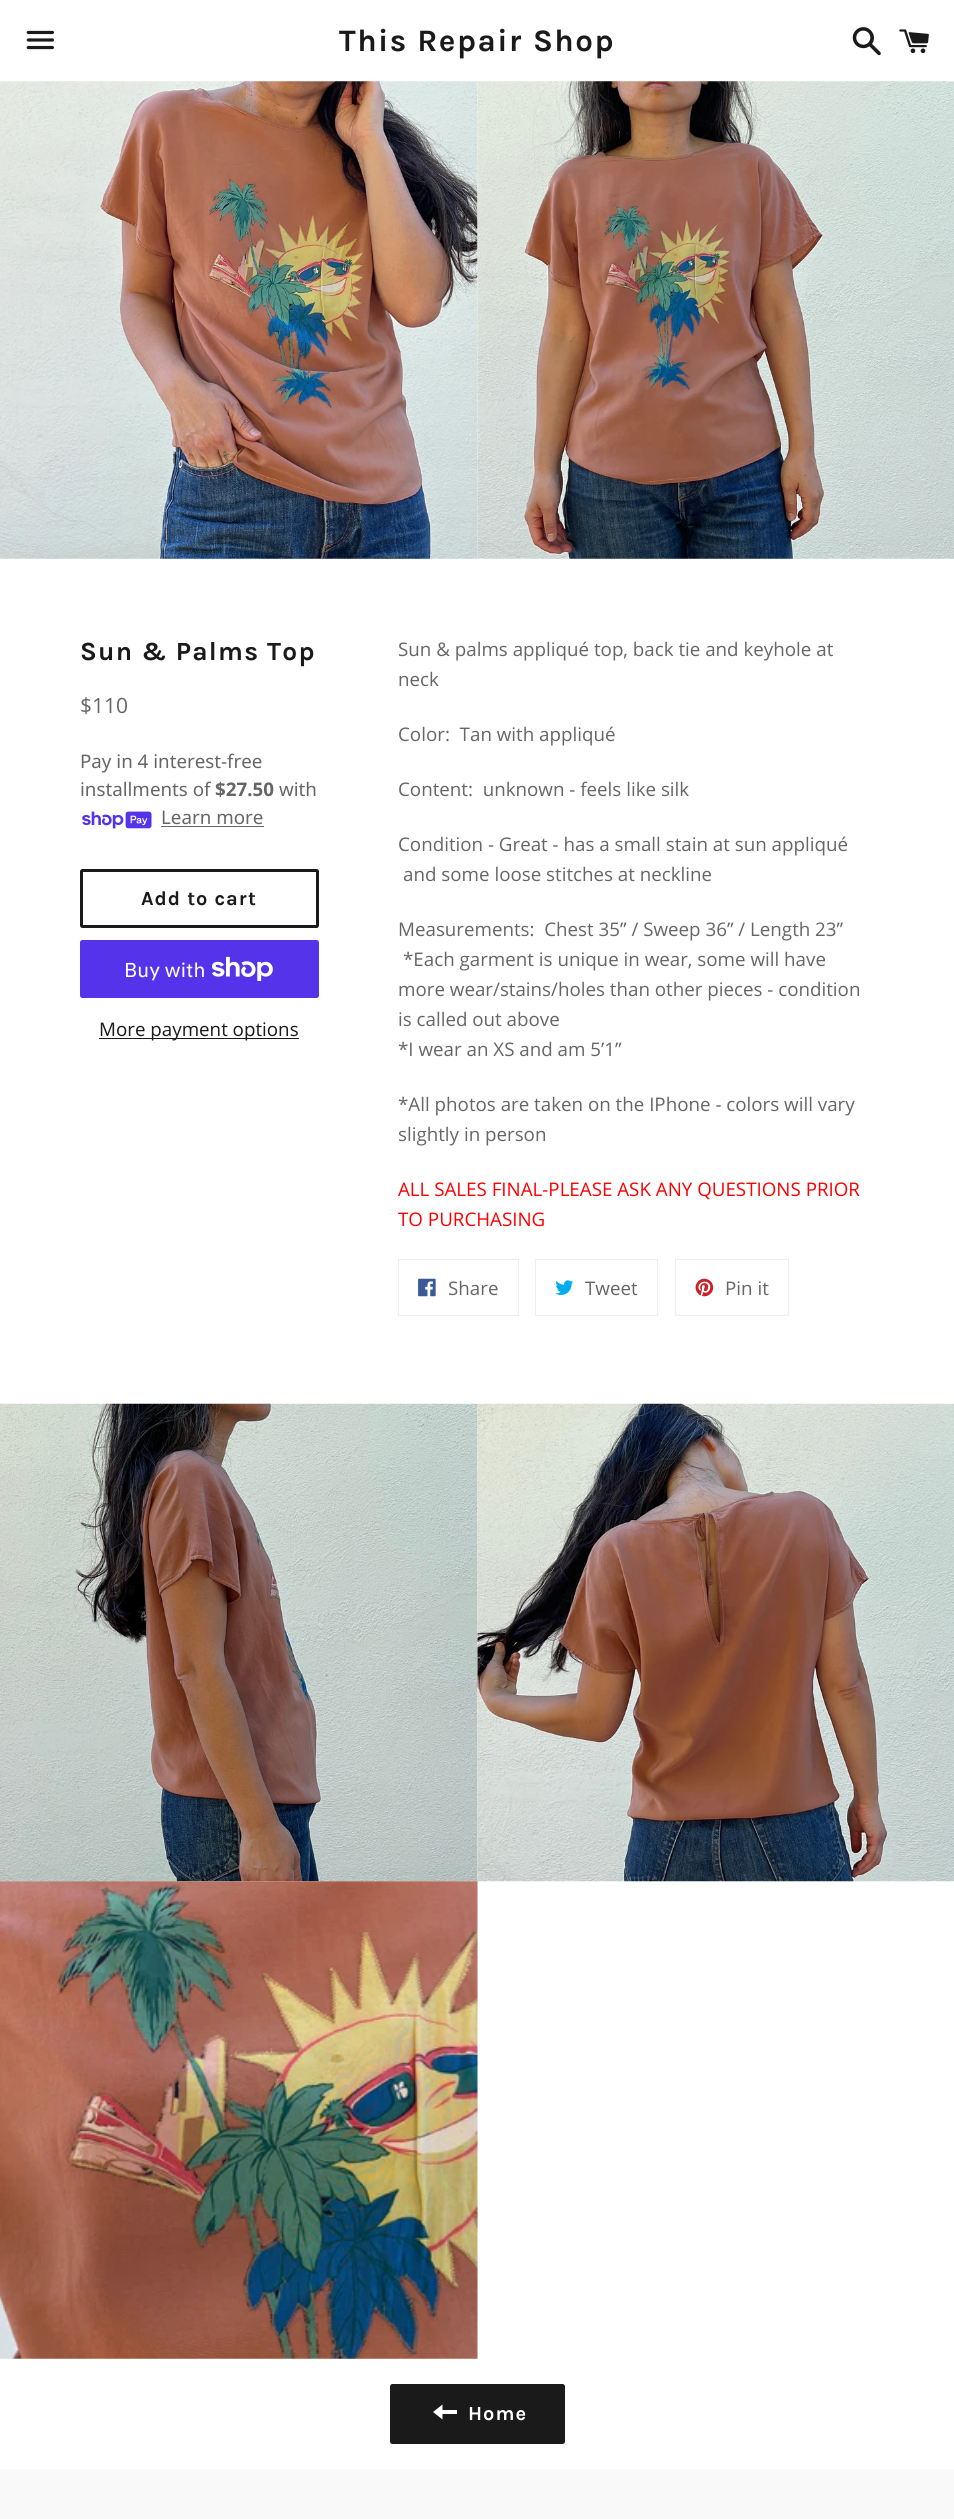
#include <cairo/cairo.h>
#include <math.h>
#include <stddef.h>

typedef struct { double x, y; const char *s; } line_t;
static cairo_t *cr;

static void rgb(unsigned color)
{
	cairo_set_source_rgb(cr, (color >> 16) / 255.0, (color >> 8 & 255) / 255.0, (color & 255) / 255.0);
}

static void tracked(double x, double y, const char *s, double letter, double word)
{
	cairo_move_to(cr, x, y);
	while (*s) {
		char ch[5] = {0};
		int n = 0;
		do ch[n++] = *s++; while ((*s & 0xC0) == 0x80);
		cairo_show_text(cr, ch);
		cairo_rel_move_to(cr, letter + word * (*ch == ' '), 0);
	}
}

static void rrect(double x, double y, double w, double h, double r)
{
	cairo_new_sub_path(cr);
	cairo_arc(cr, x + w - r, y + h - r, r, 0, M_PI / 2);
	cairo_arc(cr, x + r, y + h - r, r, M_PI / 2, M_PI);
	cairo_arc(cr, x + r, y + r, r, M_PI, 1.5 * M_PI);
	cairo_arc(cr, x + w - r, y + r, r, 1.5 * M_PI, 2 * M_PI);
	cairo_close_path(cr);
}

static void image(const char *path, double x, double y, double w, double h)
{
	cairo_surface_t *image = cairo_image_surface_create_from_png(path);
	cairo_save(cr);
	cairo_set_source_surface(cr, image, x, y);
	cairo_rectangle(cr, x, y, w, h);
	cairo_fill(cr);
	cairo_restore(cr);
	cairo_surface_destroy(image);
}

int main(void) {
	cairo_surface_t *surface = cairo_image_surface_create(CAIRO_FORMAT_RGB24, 954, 2519);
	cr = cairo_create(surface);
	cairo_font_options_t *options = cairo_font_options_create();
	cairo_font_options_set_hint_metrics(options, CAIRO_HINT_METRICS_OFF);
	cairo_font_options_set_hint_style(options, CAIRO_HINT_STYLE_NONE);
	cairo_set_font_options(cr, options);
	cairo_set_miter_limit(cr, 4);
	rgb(0xffffff);
	cairo_paint(cr);
	image("img/1.png", 26, 30, 28, 20);
	image("img/2.png", 852, 27, 29, 29);
	image("img/3.png", 899, 29, 30, 25);
	image("img/4.png", 0, 81, 478, 478);
	image("img/5.png", 477, 81, 477, 478);
	image("img/6.png", 82, 811, 70, 18);
	rgb(0x666666);
	cairo_rectangle(cr, 161, 826, 103, 1);
	cairo_fill(cr);
	rrect(81.5, 870.5, 236, 56, 1);
	rgb(0x1a1a1a);
	cairo_set_line_width(cr, 3);
	cairo_stroke(cr);
	rgb(0x5433eb);
	rrect(80, 940, 239, 58, 2.5);
	cairo_fill(cr);
	image("img/7.png", 211, 956, 62, 25);
	rgb(0x1a1a1a);
	cairo_rectangle(cr, 99, 1038, 200, 1);
	cairo_fill(cr);
	cairo_rectangle(cr, 398.5, 1259.5, 120, 56);
	rgb(0xeeeeee);
	cairo_set_line_width(cr, 1);
	cairo_stroke(cr);
	image("img/8.png", 418, 1278, 18, 19);
	cairo_rectangle(cr, 535.5, 1259.5, 122, 56);
	cairo_stroke(cr);
	image("img/9.png", 555, 1280, 19, 15);
	cairo_rectangle(cr, 675.5, 1259.5, 113, 56);
	cairo_stroke(cr);
	image("img/10.png", 695, 1278, 19, 19);
	image("img/11.png", 0, 1403, 478, 479);
	image("img/12.png", 477, 1403, 477, 479);
	image("img/13.png", 0, 1881, 478, 478);
	rgb(0x1a1a1a);
	rrect(390, 2384, 175, 60, 2.5);
	cairo_fill(cr);
	rgb(0xffffff);
	cairo_new_path(cr);
	cairo_move_to(cr, 442.5, 2410);
	cairo_line_to(cr, 442.5, 2404.5);
	cairo_line_to(cr, 433, 2412);
	cairo_line_to(cr, 442.5, 2419.5);
	cairo_line_to(cr, 442.5, 2414);
	cairo_line_to(cr, 457, 2414);
	cairo_line_to(cr, 457, 2410);
	cairo_close_path(cr);
	cairo_fill(cr);
	rgb(0xf9f9f9);
	cairo_rectangle(cr, 0, 2469, 954, 50);
	cairo_fill(cr);
	cairo_select_font_face(cr, "Karla", CAIRO_FONT_SLANT_NORMAL, CAIRO_FONT_WEIGHT_BOLD);
	cairo_set_font_size(cr, 31.25);
	rgb(0x1a1a1a);
	tracked(339, 51, "This Repair Shop", 1.5, 0);
	cairo_set_font_size(cr, 26.25);
	tracked(80, 660, "Sun & Palms Top", 1.25, 0);
	cairo_select_font_face(cr, "Open Sans", CAIRO_FONT_SLANT_NORMAL, CAIRO_FONT_WEIGHT_NORMAL);
	cairo_set_font_size(cr, 21);
	rgb(0x666666);
	cairo_move_to(cr, 80, 713);
	cairo_show_text(cr, "$110");
	cairo_select_font_face(cr, "Noto Sans", CAIRO_FONT_SLANT_NORMAL, CAIRO_FONT_WEIGHT_NORMAL);
	cairo_set_font_size(cr, 18.75);
	cairo_move_to(cr, 80, 768);
	cairo_show_text(cr, "Pay in 4 interest-free");
	cairo_move_to(cr, 80, 796);
	cairo_show_text(cr, "installments of");
	cairo_select_font_face(cr, "Noto Sans", CAIRO_FONT_SLANT_NORMAL, CAIRO_FONT_WEIGHT_BOLD);
	cairo_move_to(cr, 215, 796);
	cairo_show_text(cr, "$27.50");
	cairo_select_font_face(cr, "Noto Sans", CAIRO_FONT_SLANT_NORMAL, CAIRO_FONT_WEIGHT_NORMAL);
	cairo_move_to(cr, 279, 796);
	cairo_show_text(cr, "with");
	cairo_move_to(cr, 161, 824);
	cairo_show_text(cr, "Learn more");
	cairo_select_font_face(cr, "Karla", CAIRO_FONT_SLANT_NORMAL, CAIRO_FONT_WEIGHT_BOLD);
	cairo_set_font_size(cr, 20);
	rgb(0x1a1a1a);
	tracked(141, 905, "Add to cart", 1, 0);
	cairo_select_font_face(cr, "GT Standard", CAIRO_FONT_SLANT_NORMAL, CAIRO_FONT_WEIGHT_NORMAL);
	rgb(0xffffff);
	cairo_move_to(cr, 124, 977);
	cairo_show_text(cr, "Buy with");
	cairo_select_font_face(cr, "Open Sans", CAIRO_FONT_SLANT_NORMAL, CAIRO_FONT_WEIGHT_NORMAL);
	cairo_set_font_size(cr, 18.75);
	rgb(0x1a1a1a);
	cairo_move_to(cr, 99, 1036);
	cairo_show_text(cr, "More payment options");
	rgb(0x666666);
	{
		static const line_t items[] = {
			{398, 656, "Sun & palms appliqué top, back tie and keyhole at"},
			{398, 686, "neck"},
			{398, 741, "Color:  Tan with appliqué"},
			{398, 796, "Content:  unknown - feels like silk"},
			{398, 851, "Condition - Great - has a small stain at sun appliqué"},
			{403, 881, "and some loose stitches at neckline"},
			{398, 936, "Measurements:  Chest 35” / Sweep 36” / Length 23”"},
			{403, 966, "*Each garment is unique in wear, some will have"},
			{398, 996, "more wear/stains/holes than other pieces - condition"},
			{398, 1026, "is called out above"},
			{398, 1056, "*I wear an XS and am 5’1”"},
			{398, 1111, "*All photos are taken on the IPhone - colors will vary"},
			{398, 1141, "slightly in person"},
		};
		for (size_t i = 0; i < sizeof items / sizeof *items; i++) {
			cairo_move_to(cr, items[i].x, items[i].y);
			cairo_show_text(cr, items[i].s);
		}
	}
	rgb(0xff0000);
	cairo_move_to(cr, 398, 1196);
	cairo_show_text(cr, "ALL SALES FINAL-PLEASE ASK ANY QUESTIONS PRIOR");
	cairo_move_to(cr, 398, 1226);
	cairo_show_text(cr, "TO PURCHASING");
	rgb(0x666666);
	{
		static const line_t items[] = {
			{448, 1295, "Share"},
			{585, 1295, "Tweet"},
			{725, 1295, "Pin it"},
		};
		for (size_t i = 0; i < sizeof items / sizeof *items; i++) {
			cairo_move_to(cr, items[i].x, items[i].y);
			cairo_show_text(cr, items[i].s);
		}
	}
	cairo_select_font_face(cr, "Karla", CAIRO_FONT_SLANT_NORMAL, CAIRO_FONT_WEIGHT_BOLD);
	cairo_set_font_size(cr, 20);
	rgb(0xffffff);
	tracked(468, 2420, "Home", 1, 0);
	cairo_surface_write_to_png(surface, "page.png");
	cairo_font_options_destroy(options);
	cairo_destroy(cr);
	cairo_surface_destroy(surface);
	return 0;
}
